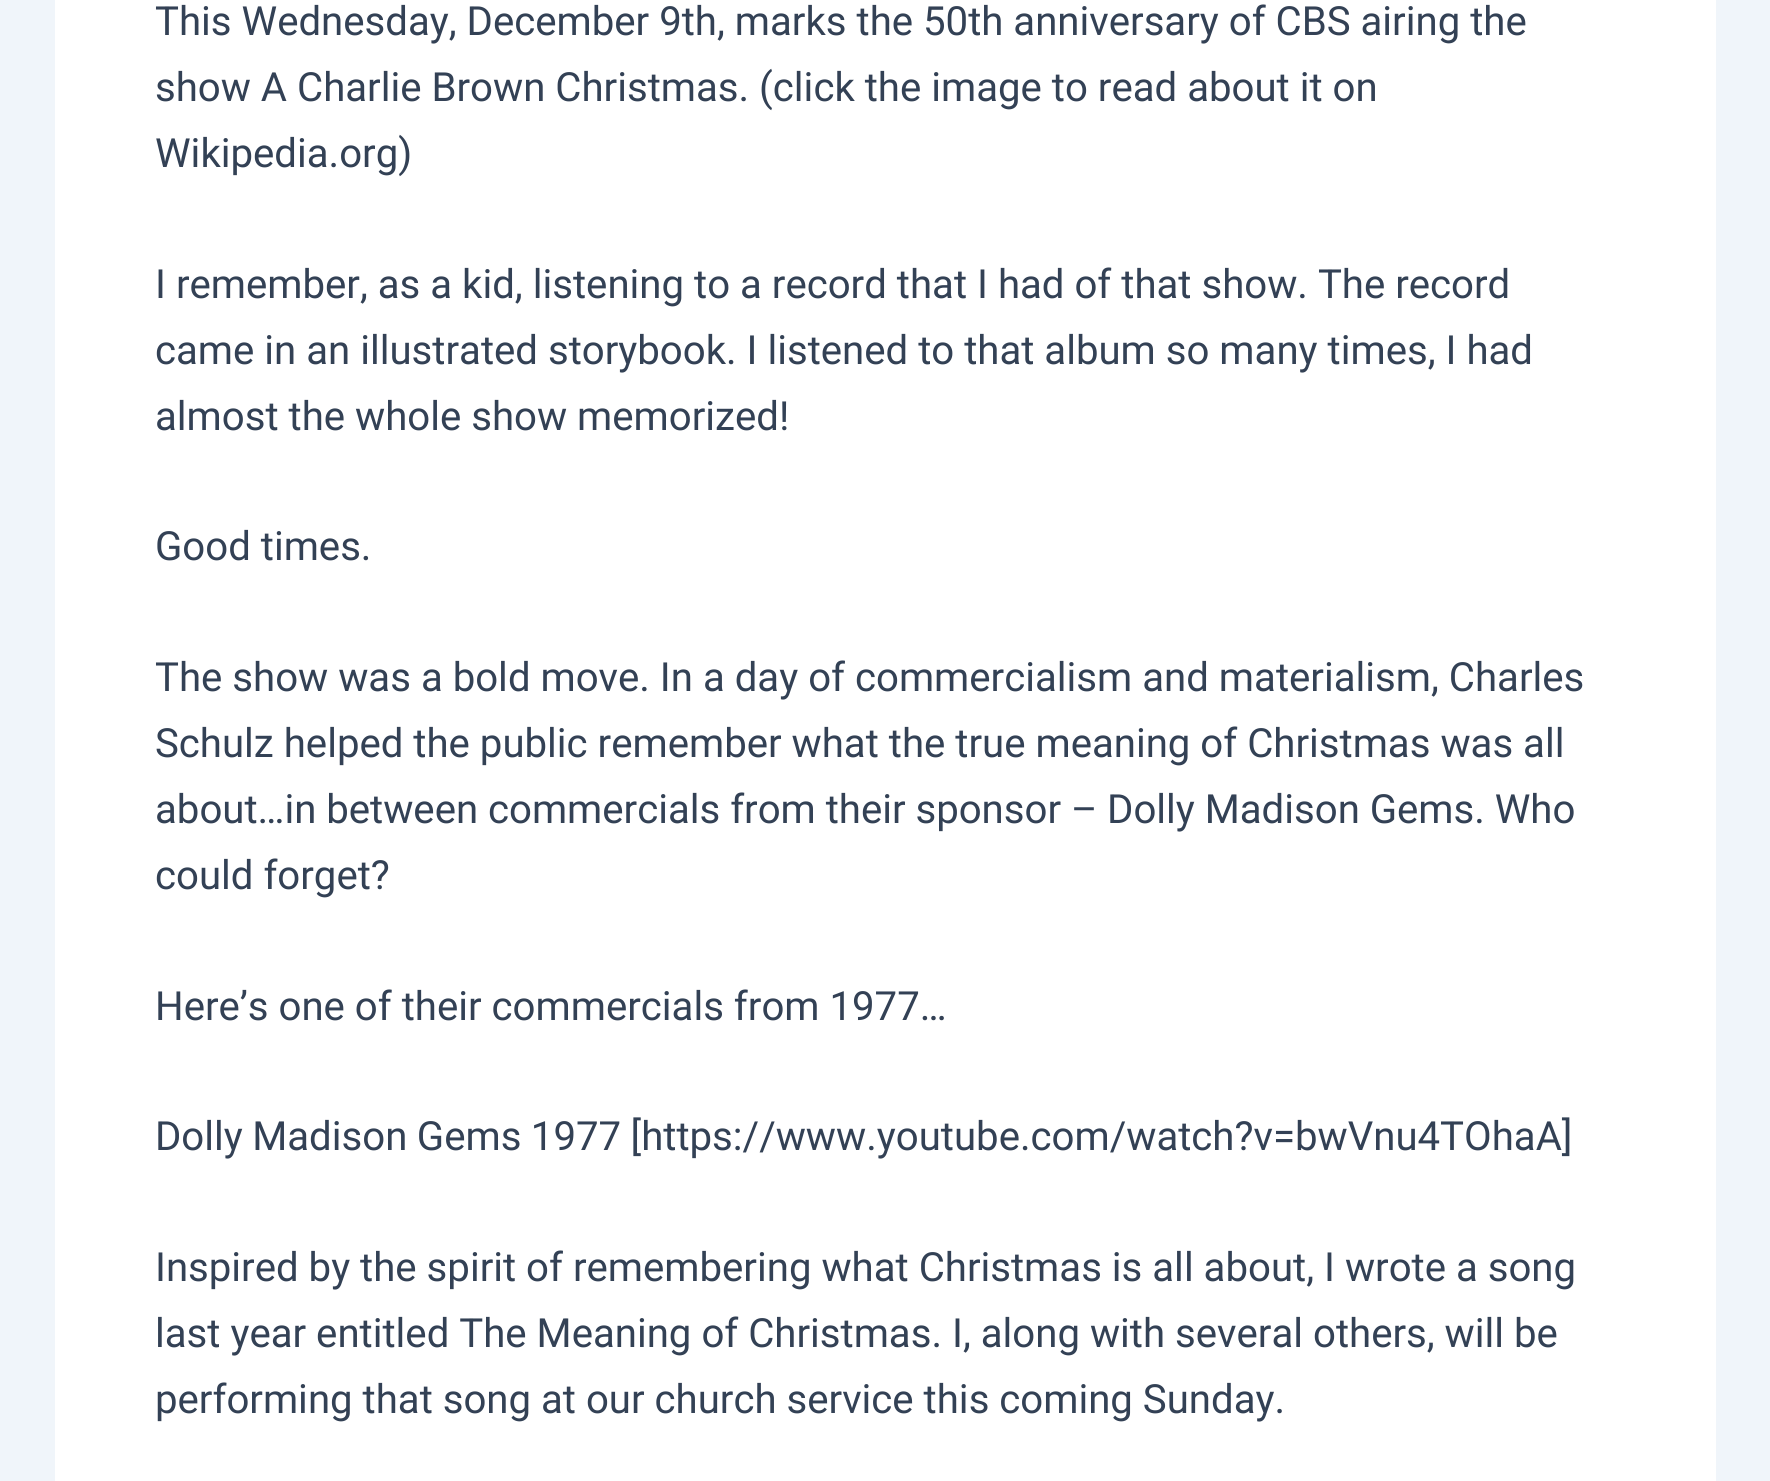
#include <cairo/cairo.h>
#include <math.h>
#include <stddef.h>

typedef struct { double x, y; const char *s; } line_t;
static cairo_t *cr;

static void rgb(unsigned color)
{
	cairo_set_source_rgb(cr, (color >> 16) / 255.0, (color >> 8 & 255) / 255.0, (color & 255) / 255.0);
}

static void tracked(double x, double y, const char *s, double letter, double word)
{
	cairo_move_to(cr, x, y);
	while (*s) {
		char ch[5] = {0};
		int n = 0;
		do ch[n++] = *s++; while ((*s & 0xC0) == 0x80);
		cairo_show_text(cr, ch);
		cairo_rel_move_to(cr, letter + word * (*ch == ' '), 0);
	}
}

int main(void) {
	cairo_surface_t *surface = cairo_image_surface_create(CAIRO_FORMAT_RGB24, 1770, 1481);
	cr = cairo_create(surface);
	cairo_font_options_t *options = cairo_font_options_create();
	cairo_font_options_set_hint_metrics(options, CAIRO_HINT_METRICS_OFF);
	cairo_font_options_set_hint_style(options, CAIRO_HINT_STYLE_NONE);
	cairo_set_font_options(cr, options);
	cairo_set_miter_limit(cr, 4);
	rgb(0xf0f5fa);
	cairo_paint(cr);
	rgb(0xffffff);
	cairo_rectangle(cr, 55, 0, 1661, 1481);
	cairo_fill(cr);
	cairo_select_font_face(cr, "Roboto", CAIRO_FONT_SLANT_NORMAL, CAIRO_FONT_WEIGHT_NORMAL);
	cairo_set_font_size(cr, 40.15);
	rgb(0x334155);
	{
		static const line_t items[] = {
			{155, 35, "This Wednesday, December 9th, marks the 50th anniversary of CBS airing the"},
			{155, 101, "show A Charlie Brown Christmas. (click the image to read about it on"},
			{155, 167, "Wikipedia.org)"},
			{155, 298, "I remember, as a kid, listening to a record that I had of that show. The record"},
			{155, 364, "came in an illustrated storybook. I listened to that album so many times, I had"},
			{155, 430, "almost the whole show memorized!"},
			{155, 560, "Good times."},
			{155, 691, "The show was a bold move. In a day of commercialism and materialism, Charles"},
			{155, 757, "Schulz helped the public remember what the true meaning of Christmas was all"},
		};
		for (size_t i = 0; i < sizeof items / sizeof *items; i++) {
			cairo_move_to(cr, items[i].x, items[i].y);
			cairo_show_text(cr, items[i].s);
		}
	}
	tracked(155, 823, "about…in between commercials from their sponsor – Dolly Madison Gems. Who", 0, -0.1);
	cairo_move_to(cr, 155, 889);
	cairo_show_text(cr, "could forget?");
	cairo_move_to(cr, 155, 1020);
	cairo_show_text(cr, "Here’s one of their commercials from 1977…");
	tracked(155, 1150, "Dolly Madison Gems 1977 [https://www.youtube.com/watch?v=bwVnu4TOhaA]", 0, -0.5);
	{
		static const line_t items[] = {
			{155, 1281, "Inspired by the spirit of remembering what Christmas is all about, I wrote a song"},
			{155, 1347, "last year entitled The Meaning of Christmas. I, along with several others, will be"},
			{155, 1413, "performing that song at our church service this coming Sunday."},
		};
		for (size_t i = 0; i < sizeof items / sizeof *items; i++) {
			cairo_move_to(cr, items[i].x, items[i].y);
			cairo_show_text(cr, items[i].s);
		}
	}
	cairo_surface_write_to_png(surface, "page.png");
	cairo_font_options_destroy(options);
	cairo_destroy(cr);
	cairo_surface_destroy(surface);
	return 0;
}
